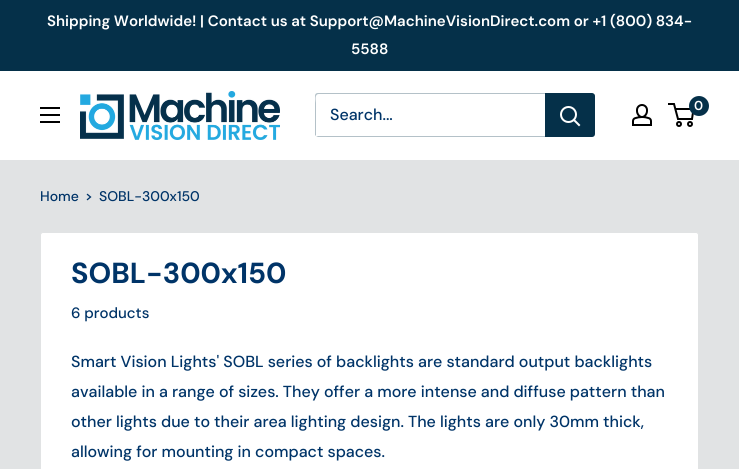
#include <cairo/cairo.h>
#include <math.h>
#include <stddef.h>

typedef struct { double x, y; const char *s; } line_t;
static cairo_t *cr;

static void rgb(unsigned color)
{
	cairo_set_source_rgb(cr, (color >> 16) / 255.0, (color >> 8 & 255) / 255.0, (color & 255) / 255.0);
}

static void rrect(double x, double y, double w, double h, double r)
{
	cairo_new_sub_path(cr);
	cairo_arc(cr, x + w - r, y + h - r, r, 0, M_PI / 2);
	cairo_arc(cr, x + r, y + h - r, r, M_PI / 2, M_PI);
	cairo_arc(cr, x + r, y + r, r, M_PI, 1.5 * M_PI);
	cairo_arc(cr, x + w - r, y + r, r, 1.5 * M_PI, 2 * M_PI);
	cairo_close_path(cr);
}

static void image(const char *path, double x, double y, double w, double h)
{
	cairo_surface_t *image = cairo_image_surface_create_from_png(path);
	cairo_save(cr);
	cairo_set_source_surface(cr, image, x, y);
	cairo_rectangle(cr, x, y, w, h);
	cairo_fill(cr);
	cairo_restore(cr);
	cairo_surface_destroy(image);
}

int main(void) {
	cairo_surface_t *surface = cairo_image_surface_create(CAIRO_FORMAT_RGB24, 739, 469);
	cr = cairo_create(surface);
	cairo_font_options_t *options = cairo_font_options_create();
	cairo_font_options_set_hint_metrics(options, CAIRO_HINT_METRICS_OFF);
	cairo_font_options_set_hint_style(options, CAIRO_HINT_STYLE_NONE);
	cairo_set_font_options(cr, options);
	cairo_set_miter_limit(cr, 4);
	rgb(0xe1e3e4);
	cairo_paint(cr);
	rgb(0x053049);
	cairo_rectangle(cr, 0, 0, 739, 71);
	cairo_fill(cr);
	rgb(0xffffff);
	cairo_rectangle(cr, 0, 71, 739, 89);
	cairo_fill(cr);
	image("img/1.png", 80, 91, 200, 49);
	image("img/2.png", 632, 104, 20, 22);
	cairo_arc(cr, 679, 124, 2, 0, 2 * M_PI);
	rgb(0x000000);
	cairo_stroke(cr);
	cairo_arc(cr, 690, 124, 2, 0, 2 * M_PI);
	cairo_stroke(cr);
	cairo_new_path(cr);
	cairo_move_to(cr, 675.5, 109);
	cairo_line_to(cr, 693.5, 109);
	cairo_line_to(cr, 692, 119);
	cairo_line_to(cr, 678, 119);
	cairo_line_to(cr, 674, 104);
	cairo_line_to(cr, 668, 104);
	cairo_stroke(cr);
	rgb(0x053049);
	cairo_arc(cr, 699, 106, 10, 0, 2 * M_PI);
	cairo_fill(cr);
	image("img/3.png", 40, 107, 20, 16);
	rgb(0xb4c1c8);
	cairo_new_path(cr);
	cairo_move_to(cr, 316, 136);
	cairo_line_to(cr, 318, 137);
	cairo_line_to(cr, 592, 137);
	cairo_curve_to(cr, 594, 137, 595, 136, 595, 134);
	cairo_line_to(cr, 595, 95);
	cairo_line_to(cr, 594, 94);
	cairo_line_to(cr, 594, 127);
	cairo_curve_to(cr, 594, 129, 596, 136, 591, 136);
	cairo_close_path(cr);
	cairo_fill(cr);
	cairo_new_path(cr);
	cairo_move_to(cr, 319, 94);
	cairo_line_to(cr, 594, 94);
	cairo_line_to(cr, 592, 93);
	cairo_line_to(cr, 318, 93);
	cairo_curve_to(cr, 316, 93, 315, 94, 315, 96);
	cairo_line_to(cr, 315, 135);
	cairo_line_to(cr, 316, 136);
	cairo_line_to(cr, 316, 103);
	cairo_curve_to(cr, 316, 101, 314, 94, 319, 94);
	cairo_close_path(cr);
	cairo_fill(cr);
	rgb(0x053049);
	cairo_new_path(cr);
	cairo_move_to(cr, 545, 93);
	cairo_line_to(cr, 592, 93);
	cairo_curve_to(cr, 593.5, 93, 595, 94.5, 595, 96);
	cairo_line_to(cr, 595, 134);
	cairo_curve_to(cr, 595, 135.5, 593.5, 137, 592, 137);
	cairo_line_to(cr, 545, 137);
	cairo_close_path(cr);
	cairo_fill(cr);
	cairo_new_path(cr);
	cairo_move_to(cr, 579, 125);
	cairo_line_to(cr, 574, 120);
	rgb(0xffffff);
	cairo_set_line_cap(cr, CAIRO_LINE_CAP_SQUARE);
	cairo_stroke(cr);
	cairo_arc(cr, 568.5, 114.5, 7.5, 0, 2 * M_PI);
	cairo_set_line_cap(cr, CAIRO_LINE_CAP_BUTT);
	cairo_stroke(cr);
	cairo_new_path(cr);
	cairo_move_to(cr, 87.5, 194.5);
	cairo_line_to(cr, 90.5, 197);
	cairo_line_to(cr, 87.5, 199.5);
	rgb(0x003468);
	cairo_set_line_width(cr, 1.3);
	cairo_set_line_cap(cr, CAIRO_LINE_CAP_SQUARE);
	cairo_stroke(cr);
	rgb(0xffffff);
	rrect(40.5, 232.5, 658, 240, 2.5);
	cairo_fill_preserve(cr);
	rgb(0xe1e3e4);
	cairo_set_line_width(cr, 1);
	cairo_set_line_cap(cr, CAIRO_LINE_CAP_BUTT);
	cairo_stroke(cr);
	cairo_select_font_face(cr, "DM Sans SemiBold", CAIRO_FONT_SLANT_NORMAL, CAIRO_FONT_WEIGHT_NORMAL);
	cairo_set_font_size(cr, 15);
	rgb(0xffffff);
	cairo_move_to(cr, 47, 26);
	cairo_show_text(cr, "Shipping Worldwide! | Contact us at Support@MachineVisionDirect.com or +1 (800) 834-");
	cairo_move_to(cr, 351, 54);
	cairo_show_text(cr, "5588");
	cairo_set_font_size(cr, 13);
	cairo_move_to(cr, 694, 110);
	cairo_show_text(cr, "0");
	cairo_select_font_face(cr, "DM Sans Medium", CAIRO_FONT_SLANT_NORMAL, CAIRO_FONT_WEIGHT_NORMAL);
	cairo_set_font_size(cr, 16);
	rgb(0x003468);
	cairo_move_to(cr, 330, 120);
	cairo_show_text(cr, "Search...");
	cairo_set_font_size(cr, 14);
	cairo_move_to(cr, 40, 201);
	cairo_show_text(cr, "Home");
	cairo_move_to(cr, 99, 201);
	cairo_show_text(cr, "SOBL-300x150");
	cairo_select_font_face(cr, "DM Sans", CAIRO_FONT_SLANT_NORMAL, CAIRO_FONT_WEIGHT_BOLD);
	cairo_set_font_size(cr, 29);
	cairo_move_to(cr, 71, 283);
	cairo_show_text(cr, "SOBL-300x150");
	cairo_select_font_face(cr, "DM Sans Medium", CAIRO_FONT_SLANT_NORMAL, CAIRO_FONT_WEIGHT_NORMAL);
	cairo_set_font_size(cr, 15);
	cairo_move_to(cr, 71, 318);
	cairo_show_text(cr, "6 products");
	cairo_set_font_size(cr, 16);
	{
		static const line_t items[] = {
			{71, 367, "Smart Vision Lights' SOBL series of backlights are standard output backlights"},
			{71, 397, "available in a range of sizes. They offer a more intense and diffuse pattern than"},
			{71, 427, "other lights due to their area lighting design. The lights are only 30mm thick,"},
			{71, 457, "allowing for mounting in compact spaces."},
		};
		for (size_t i = 0; i < sizeof items / sizeof *items; i++) {
			cairo_move_to(cr, items[i].x, items[i].y);
			cairo_show_text(cr, items[i].s);
		}
	}
	cairo_surface_write_to_png(surface, "page.png");
	cairo_font_options_destroy(options);
	cairo_destroy(cr);
	cairo_surface_destroy(surface);
	return 0;
}
